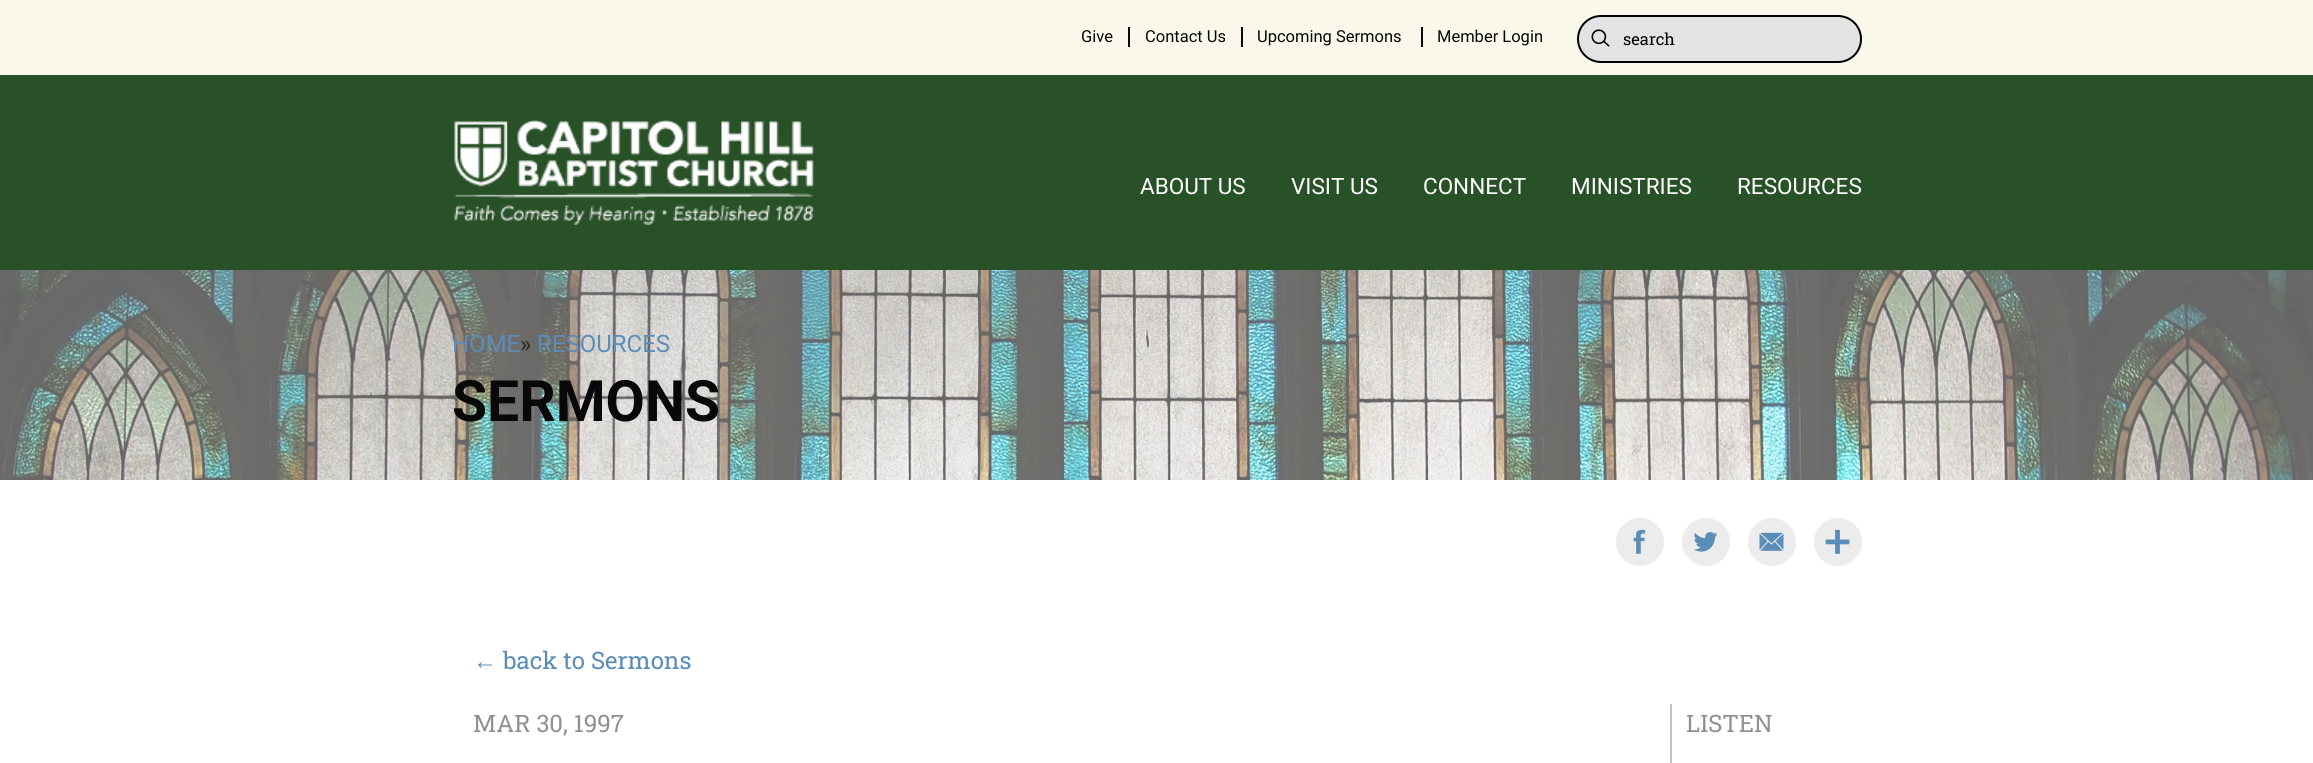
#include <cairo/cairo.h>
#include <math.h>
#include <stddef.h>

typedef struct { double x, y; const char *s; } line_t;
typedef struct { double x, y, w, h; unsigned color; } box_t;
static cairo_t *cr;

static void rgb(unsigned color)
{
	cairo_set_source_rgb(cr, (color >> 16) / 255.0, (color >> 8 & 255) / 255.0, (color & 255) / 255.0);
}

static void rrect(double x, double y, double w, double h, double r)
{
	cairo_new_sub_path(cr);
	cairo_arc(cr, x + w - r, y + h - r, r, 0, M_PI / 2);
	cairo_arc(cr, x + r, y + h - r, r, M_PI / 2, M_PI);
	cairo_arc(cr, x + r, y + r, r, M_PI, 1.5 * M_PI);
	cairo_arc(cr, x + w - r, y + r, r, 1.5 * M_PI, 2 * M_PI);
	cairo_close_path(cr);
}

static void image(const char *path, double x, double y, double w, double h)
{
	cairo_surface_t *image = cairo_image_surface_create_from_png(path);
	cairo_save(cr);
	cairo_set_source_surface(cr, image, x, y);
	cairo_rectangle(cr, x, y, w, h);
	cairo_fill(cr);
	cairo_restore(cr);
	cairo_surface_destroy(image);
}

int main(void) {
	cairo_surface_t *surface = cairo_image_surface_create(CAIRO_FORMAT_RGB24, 2313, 763);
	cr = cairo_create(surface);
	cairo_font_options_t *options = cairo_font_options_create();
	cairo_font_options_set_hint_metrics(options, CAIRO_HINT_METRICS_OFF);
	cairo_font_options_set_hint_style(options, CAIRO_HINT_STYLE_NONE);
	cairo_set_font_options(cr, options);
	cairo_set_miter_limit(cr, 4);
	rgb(0xffffff);
	cairo_paint(cr);
	{
		static const box_t items[] = {
			{0, 0, 2313, 75, 0xfaf8eb},
			{1128, 27, 2, 20, 0x070807},
			{1241, 27, 2, 20, 0x070807},
			{1421, 27, 2, 20, 0x070807},
		};
		for (size_t i = 0; i < sizeof items / sizeof *items; i++) {
			rgb(items[i].color);
			cairo_rectangle(cr, items[i].x, items[i].y, items[i].w, items[i].h);
			cairo_fill(cr);
		}
	}
	rgb(0xe3e3e3);
	rrect(1578, 16, 283, 46, 23);
	cairo_fill_preserve(cr);
	rgb(0x000000);
	cairo_stroke(cr);
	image("img/1.png", 1591, 29, 19, 18);
	rgb(0x285128);
	cairo_rectangle(cr, 0, 75, 2313, 195);
	cairo_fill(cr);
	image("img/2.png", 454, 120, 360, 105);
	image("img/3.png", 0, 270, 2313, 210);
	rgb(0xececec);
	cairo_arc(cr, 1640, 542, 24, 0, 2 * M_PI);
	cairo_fill(cr);
	image("img/4.png", 1633, 529, 13, 25);
	cairo_arc(cr, 1706, 542, 24, 0, 2 * M_PI);
	cairo_fill(cr);
	image("img/5.png", 1693, 532, 25, 20);
	cairo_arc(cr, 1772, 542, 24, 0, 2 * M_PI);
	cairo_fill(cr);
	image("img/6.png", 1759, 532, 25, 19);
	cairo_arc(cr, 1838, 542, 24, 0, 2 * M_PI);
	cairo_fill(cr);
	image("img/7.png", 1825, 529, 25, 25);
	rgb(0xc0c2c4);
	cairo_rectangle(cr, 1670, 704, 2, 59);
	cairo_fill(cr);
	cairo_select_font_face(cr, "Roboto", CAIRO_FONT_SLANT_NORMAL, CAIRO_FONT_WEIGHT_NORMAL);
	cairo_set_font_size(cr, 16.5);
	rgb(0x070807);
	{
		static const line_t items[] = {
			{1081, 42, "Give"},
			{1145, 42, "Contact Us"},
			{1257, 42, "Upcoming Sermons"},
			{1437, 42, "Member Login"},
		};
		for (size_t i = 0; i < sizeof items / sizeof *items; i++) {
			cairo_move_to(cr, items[i].x, items[i].y);
			cairo_show_text(cr, items[i].s);
		}
	}
	cairo_select_font_face(cr, "Roboto Slab", CAIRO_FONT_SLANT_NORMAL, CAIRO_FONT_WEIGHT_NORMAL);
	rgb(0x000000);
	cairo_move_to(cr, 1623, 45);
	cairo_show_text(cr, "search");
	cairo_select_font_face(cr, "Roboto", CAIRO_FONT_SLANT_NORMAL, CAIRO_FONT_WEIGHT_NORMAL);
	cairo_set_font_size(cr, 22.5);
	rgb(0xffffff);
	{
		static const line_t items[] = {
			{1140, 194, "ABOUT US"},
			{1291, 194, "VISIT US"},
			{1423, 194, "CONNECT"},
			{1571, 194, "MINISTRIES"},
			{1737, 194, "RESOURCES"},
		};
		for (size_t i = 0; i < sizeof items / sizeof *items; i++) {
			cairo_move_to(cr, items[i].x, items[i].y);
			cairo_show_text(cr, items[i].s);
		}
	}
	cairo_set_font_size(cr, 24);
	rgb(0x5a8db7);
	cairo_move_to(cr, 452, 352);
	cairo_show_text(cr, "HOME");
	rgb(0x282d28);
	cairo_move_to(cr, 520, 352);
	cairo_show_text(cr, "»");
	rgb(0x5a8db7);
	cairo_move_to(cr, 537, 352);
	cairo_show_text(cr, "RESOURCES");
	cairo_select_font_face(cr, "Roboto", CAIRO_FONT_SLANT_NORMAL, CAIRO_FONT_WEIGHT_BOLD);
	cairo_set_font_size(cr, 57);
	rgb(0x070807);
	cairo_move_to(cr, 452, 421);
	cairo_show_text(cr, "SERMONS");
	cairo_select_font_face(cr, "Liberation Serif", CAIRO_FONT_SLANT_NORMAL, CAIRO_FONT_WEIGHT_NORMAL);
	cairo_set_font_size(cr, 24);
	rgb(0x5a8db7);
	cairo_move_to(cr, 473, 669);
	cairo_show_text(cr, "←");
	cairo_select_font_face(cr, "Roboto Slab", CAIRO_FONT_SLANT_NORMAL, CAIRO_FONT_WEIGHT_NORMAL);
	cairo_move_to(cr, 503, 669);
	cairo_show_text(cr, "back to Sermons");
	rgb(0x909090);
	cairo_move_to(cr, 473, 732);
	cairo_show_text(cr, "MAR 30, 1997");
	cairo_move_to(cr, 1686, 732);
	cairo_show_text(cr, "LISTEN");
	cairo_surface_write_to_png(surface, "page.png");
	cairo_font_options_destroy(options);
	cairo_destroy(cr);
	cairo_surface_destroy(surface);
	return 0;
}
